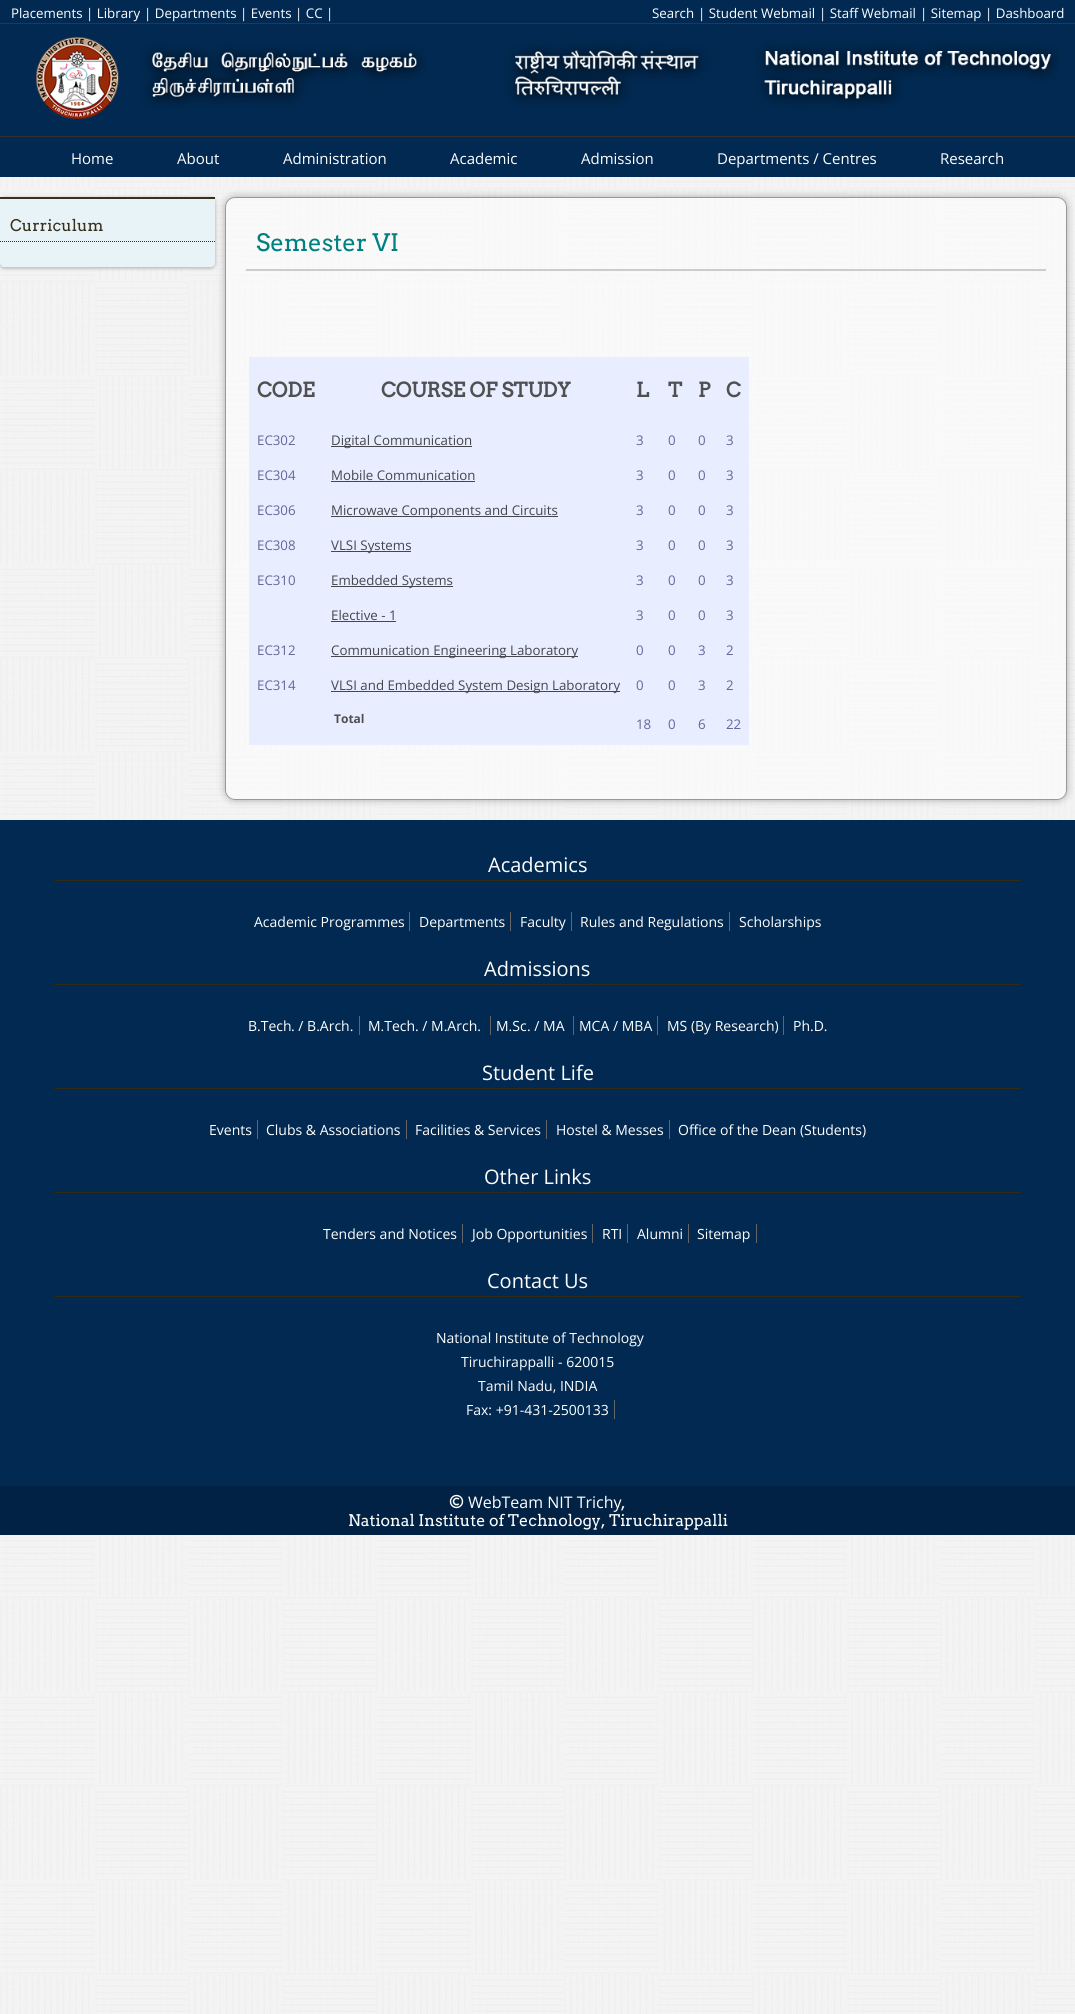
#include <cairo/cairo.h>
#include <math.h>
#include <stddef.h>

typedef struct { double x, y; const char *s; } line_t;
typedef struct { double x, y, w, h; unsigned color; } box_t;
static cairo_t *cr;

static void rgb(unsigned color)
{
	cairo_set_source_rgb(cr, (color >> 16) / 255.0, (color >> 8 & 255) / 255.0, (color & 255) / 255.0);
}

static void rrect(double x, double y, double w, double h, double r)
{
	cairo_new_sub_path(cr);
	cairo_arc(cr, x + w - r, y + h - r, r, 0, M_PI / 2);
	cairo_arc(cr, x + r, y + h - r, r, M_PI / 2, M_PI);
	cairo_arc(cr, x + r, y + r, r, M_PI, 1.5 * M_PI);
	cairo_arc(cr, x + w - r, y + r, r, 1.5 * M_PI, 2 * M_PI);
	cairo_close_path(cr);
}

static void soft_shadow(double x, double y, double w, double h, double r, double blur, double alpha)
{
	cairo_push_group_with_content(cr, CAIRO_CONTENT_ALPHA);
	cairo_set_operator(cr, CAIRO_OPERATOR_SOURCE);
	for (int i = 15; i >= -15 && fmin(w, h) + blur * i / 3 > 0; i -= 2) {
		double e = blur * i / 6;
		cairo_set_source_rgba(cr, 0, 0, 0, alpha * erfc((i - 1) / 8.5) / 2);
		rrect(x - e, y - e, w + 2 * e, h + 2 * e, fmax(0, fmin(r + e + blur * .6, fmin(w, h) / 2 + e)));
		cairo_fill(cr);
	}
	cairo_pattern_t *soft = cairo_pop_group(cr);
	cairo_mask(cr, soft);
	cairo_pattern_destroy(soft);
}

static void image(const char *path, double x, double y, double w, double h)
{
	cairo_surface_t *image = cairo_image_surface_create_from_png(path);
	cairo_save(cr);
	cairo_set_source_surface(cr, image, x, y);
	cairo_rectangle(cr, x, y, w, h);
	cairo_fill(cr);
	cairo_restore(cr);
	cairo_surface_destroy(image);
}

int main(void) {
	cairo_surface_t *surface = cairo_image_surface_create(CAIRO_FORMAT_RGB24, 1075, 2014);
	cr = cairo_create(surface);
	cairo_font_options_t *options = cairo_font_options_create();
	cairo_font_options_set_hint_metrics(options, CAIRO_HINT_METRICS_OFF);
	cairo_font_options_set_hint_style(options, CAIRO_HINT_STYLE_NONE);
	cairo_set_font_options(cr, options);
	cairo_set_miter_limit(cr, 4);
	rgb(0xffffff);
	cairo_paint(cr);
	image("img/1.png", 0, 177, 1075, 1837);
	{
		static const box_t items[] = {
			{0, 0, 1075, 23, 0x012951},
			{0, 23, 1075, 1, 0x313541},
			{0, 24, 1075, 112, 0x012951},
			{0, 136, 1075, 1, 0x353030},
		};
		for (size_t i = 0; i < sizeof items / sizeof *items; i++) {
			rgb(items[i].color);
			cairo_rectangle(cr, items[i].x, items[i].y, items[i].w, items[i].h);
			cairo_fill(cr);
		}
	}
	image("img/2.png", 35, 36, 1024, 84);
	rgb(0x012951);
	cairo_rectangle(cr, 0, 137, 1075, 40);
	cairo_fill(cr);
	rgb(0x000000);
	soft_shadow(0, 198, 215, 70, 4, 2, 0.3);
	rgb(0xe8f3f7);
	cairo_new_path(cr);
	cairo_move_to(cr, 0, 197);
	cairo_line_to(cr, 215, 197);
	cairo_line_to(cr, 215, 263);
	cairo_curve_to(cr, 215, 265, 213, 267, 211, 267);
	cairo_line_to(cr, 4, 267);
	cairo_curve_to(cr, 2, 267, 0, 265, 0, 263);
	cairo_close_path(cr);
	cairo_fill(cr);
	rgb(0x382f1c);
	cairo_rectangle(cr, 0, 197, 215, 2);
	cairo_fill(cr);
	cairo_new_path(cr);
	cairo_move_to(cr, 0, 241.5);
	cairo_line_to(cr, 215, 241.5);
	cairo_set_line_width(cr, 1);
	cairo_set_dash(cr, (double[]){1, 1}, 2, 0);
	cairo_stroke(cr);
	cairo_save(cr);
	cairo_set_fill_rule(cr, CAIRO_FILL_RULE_EVEN_ODD);
	cairo_new_path(cr);
	cairo_move_to(cr, 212, 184);
	cairo_line_to(cr, 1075, 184);
	cairo_line_to(cr, 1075, 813);
	cairo_line_to(cr, 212, 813);
	cairo_close_path(cr);
	cairo_move_to(cr, 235, 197);
	cairo_line_to(cr, 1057, 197);
	cairo_curve_to(cr, 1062.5, 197, 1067, 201.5, 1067, 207);
	cairo_line_to(cr, 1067, 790);
	cairo_curve_to(cr, 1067, 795.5, 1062.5, 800, 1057, 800);
	cairo_line_to(cr, 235, 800);
	cairo_curve_to(cr, 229.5, 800, 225, 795.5, 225, 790);
	cairo_line_to(cr, 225, 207);
	cairo_curve_to(cr, 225, 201.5, 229.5, 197, 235, 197);
	cairo_close_path(cr);
	cairo_clip(cr);
	rgb(0x000000);
	soft_shadow(225, 197, 842, 603, 10, 4, 0.3);
	cairo_restore(cr);
	cairo_set_source_rgba(cr, 1, 1, 1, 0.5);
	rrect(225.5, 197.5, 841, 602, 9.5);
	cairo_fill_preserve(cr);
	rgb(0x999999);
	cairo_set_dash(cr, NULL, 0, 0);
	cairo_stroke(cr);
	{
		static const box_t items[] = {
			{246, 269, 800, 2, 0xcccccc},
			{249, 357, 500, 65, 0xe8edff},
			{749, 357, 1, 1, 0xffffff},
			{249, 422, 500, 35, 0xe8edff},
			{331, 446, 141, 1, 0x46474d},
			{749, 422, 1, 1, 0xffffff},
			{249, 457, 500, 35, 0xe8edff},
			{331, 481, 144, 1, 0x46474d},
			{749, 457, 1, 1, 0xffffff},
			{249, 492, 500, 35, 0xe8edff},
			{331, 516, 227, 1, 0x46474d},
			{749, 492, 1, 1, 0xffffff},
			{249, 527, 500, 35, 0xe8edff},
			{331, 551, 80, 1, 0x46474d},
			{749, 527, 1, 1, 0xffffff},
			{249, 562, 500, 35, 0xe8edff},
			{331, 586, 122, 1, 0x46474d},
			{749, 562, 1, 1, 0xffffff},
			{249, 597, 500, 35, 0xe8edff},
			{331, 621, 65, 1, 0x46474d},
			{749, 597, 1, 1, 0xffffff},
			{249, 632, 500, 35, 0xe8edff},
			{331, 656, 247, 1, 0x46474d},
			{749, 632, 1, 1, 0xffffff},
			{249, 667, 500, 35, 0xe8edff},
			{331, 691, 289, 1, 0x46474d},
			{749, 667, 1, 1, 0xffffff},
			{249, 702, 500, 43, 0xe8edff},
			{749, 702, 1, 1, 0xffffff},
			{0, 820, 1075, 666, 0x012951},
		};
		for (size_t i = 0; i < sizeof items / sizeof *items; i++) {
			rgb(items[i].color);
			cairo_rectangle(cr, items[i].x, items[i].y, items[i].w, items[i].h);
			cairo_fill(cr);
		}
	}
	cairo_new_path(cr);
	cairo_move_to(cr, 54, 880.5);
	cairo_line_to(cr, 1021, 880.5);
	rgb(0x382f1c);
	cairo_set_dash(cr, (double[]){1, 1}, 2, 0);
	cairo_stroke(cr);
	{
		static const box_t items[] = {
			{409, 912, 1, 19, 0x666666},
			{510, 912, 1, 19, 0x666666},
			{571, 912, 1, 19, 0x666666},
			{729, 912, 1, 19, 0x666666},
		};
		for (size_t i = 0; i < sizeof items / sizeof *items; i++) {
			rgb(items[i].color);
			cairo_rectangle(cr, items[i].x, items[i].y, items[i].w, items[i].h);
			cairo_fill(cr);
		}
	}
	cairo_new_path(cr);
	cairo_move_to(cr, 54, 984.5);
	cairo_line_to(cr, 1021, 984.5);
	rgb(0x382f1c);
	cairo_stroke(cr);
	{
		static const box_t items[] = {
			{359, 1016, 1, 19, 0x666666},
			{490, 1016, 1, 19, 0x666666},
			{573, 1016, 1, 19, 0x666666},
			{657, 1016, 1, 19, 0x666666},
			{783, 1016, 1, 19, 0x666666},
		};
		for (size_t i = 0; i < sizeof items / sizeof *items; i++) {
			rgb(items[i].color);
			cairo_rectangle(cr, items[i].x, items[i].y, items[i].w, items[i].h);
			cairo_fill(cr);
		}
	}
	cairo_new_path(cr);
	cairo_move_to(cr, 54, 1088.5);
	cairo_line_to(cr, 1021, 1088.5);
	rgb(0x382f1c);
	cairo_stroke(cr);
	{
		static const box_t items[] = {
			{257, 1120, 1, 19, 0x666666},
			{406, 1120, 1, 19, 0x666666},
			{546, 1120, 1, 19, 0x666666},
			{669, 1120, 1, 19, 0x666666},
		};
		for (size_t i = 0; i < sizeof items / sizeof *items; i++) {
			rgb(items[i].color);
			cairo_rectangle(cr, items[i].x, items[i].y, items[i].w, items[i].h);
			cairo_fill(cr);
		}
	}
	cairo_new_path(cr);
	cairo_move_to(cr, 54, 1192.5);
	cairo_line_to(cr, 1021, 1192.5);
	rgb(0x382f1c);
	cairo_stroke(cr);
	{
		static const box_t items[] = {
			{462, 1224, 1, 19, 0x666666},
			{592, 1224, 1, 19, 0x666666},
			{627, 1224, 1, 19, 0x666666},
			{688, 1224, 1, 19, 0x666666},
			{756, 1224, 1, 19, 0x666666},
		};
		for (size_t i = 0; i < sizeof items / sizeof *items; i++) {
			rgb(items[i].color);
			cairo_rectangle(cr, items[i].x, items[i].y, items[i].w, items[i].h);
			cairo_fill(cr);
		}
	}
	cairo_new_path(cr);
	cairo_move_to(cr, 54, 1296.5);
	cairo_line_to(cr, 1021, 1296.5);
	rgb(0x382f1c);
	cairo_stroke(cr);
	rgb(0x666666);
	cairo_rectangle(cr, 614, 1400, 1, 19);
	cairo_fill(cr);
	rgb(0x012244);
	cairo_rectangle(cr, 0, 1486, 1075, 49);
	cairo_fill(cr);
	cairo_select_font_face(cr, "Open Sans", CAIRO_FONT_SLANT_NORMAL, CAIRO_FONT_WEIGHT_NORMAL);
	cairo_set_font_size(cr, 13.3);
	rgb(0xffffff);
	{
		static const line_t items[] = {
			{11, 18, "Placements"},
			{86, 18, "| Library"},
			{144, 18, "| Departments"},
			{240, 18, "| Events"},
			{295, 18, "| CC"},
			{326, 18, "|"},
			{652, 18, "Search"},
			{698, 18, "| Student Webmail"},
			{819, 18, "| Staff Webmail"},
			{920, 18, "| Sitemap"},
			{985, 18, "| Dashboard"},
		};
		for (size_t i = 0; i < sizeof items / sizeof *items; i++) {
			cairo_move_to(cr, items[i].x, items[i].y);
			cairo_show_text(cr, items[i].s);
		}
	}
	cairo_set_font_size(cr, 15);
	{
		static const line_t items[] = {
			{71, 164, "Home"},
			{177, 164, "About"},
			{283, 164, "Administration"},
			{450, 164, "Academic"},
			{581, 164, "Admission"},
			{717, 164, "Departments / Centres"},
			{940, 164, "Research"},
		};
		for (size_t i = 0; i < sizeof items / sizeof *items; i++) {
			cairo_move_to(cr, items[i].x, items[i].y);
			cairo_show_text(cr, items[i].s);
		}
	}
	cairo_select_font_face(cr, "Arvo", CAIRO_FONT_SLANT_NORMAL, CAIRO_FONT_WEIGHT_NORMAL);
	cairo_set_font_size(cr, 16);
	rgb(0x382f1c);
	cairo_move_to(cr, 10, 231);
	cairo_show_text(cr, "Curriculum");
	cairo_set_font_size(cr, 24);
	rgb(0x008080);
	cairo_move_to(cr, 256, 251);
	cairo_show_text(cr, "Semester VI");
	cairo_select_font_face(cr, "Arvo", CAIRO_FONT_SLANT_NORMAL, CAIRO_FONT_WEIGHT_BOLD);
	cairo_set_font_size(cr, 20);
	rgb(0x505050);
	{
		static const line_t items[] = {
			{257, 397, "CODE"},
			{381, 397, "COURSE OF STUDY"},
			{636, 397, "L"},
			{668, 397, "T"},
			{698, 397, "P"},
			{726, 397, "C"},
		};
		for (size_t i = 0; i < sizeof items / sizeof *items; i++) {
			cairo_move_to(cr, items[i].x, items[i].y);
			cairo_show_text(cr, items[i].s);
		}
	}
	cairo_select_font_face(cr, "Open Sans", CAIRO_FONT_SLANT_NORMAL, CAIRO_FONT_WEIGHT_NORMAL);
	cairo_set_font_size(cr, 13.3);
	rgb(0x666699);
	cairo_move_to(cr, 257, 445);
	cairo_show_text(cr, "EC302");
	rgb(0x45474c);
	cairo_move_to(cr, 331, 445);
	cairo_show_text(cr, "Digital Communication");
	rgb(0x666699);
	{
		static const line_t items[] = {
			{636, 445, "3"},
			{668, 445, "0"},
			{698, 445, "0"},
			{726, 445, "3"},
			{257, 480, "EC304"},
		};
		for (size_t i = 0; i < sizeof items / sizeof *items; i++) {
			cairo_move_to(cr, items[i].x, items[i].y);
			cairo_show_text(cr, items[i].s);
		}
	}
	rgb(0x45474c);
	cairo_move_to(cr, 331, 480);
	cairo_show_text(cr, "Mobile Communication");
	rgb(0x666699);
	{
		static const line_t items[] = {
			{636, 480, "3"},
			{668, 480, "0"},
			{698, 480, "0"},
			{726, 480, "3"},
			{257, 515, "EC306"},
		};
		for (size_t i = 0; i < sizeof items / sizeof *items; i++) {
			cairo_move_to(cr, items[i].x, items[i].y);
			cairo_show_text(cr, items[i].s);
		}
	}
	rgb(0x45474c);
	cairo_move_to(cr, 331, 515);
	cairo_show_text(cr, "Microwave Components and Circuits");
	rgb(0x666699);
	{
		static const line_t items[] = {
			{636, 515, "3"},
			{668, 515, "0"},
			{698, 515, "0"},
			{726, 515, "3"},
			{257, 550, "EC308"},
		};
		for (size_t i = 0; i < sizeof items / sizeof *items; i++) {
			cairo_move_to(cr, items[i].x, items[i].y);
			cairo_show_text(cr, items[i].s);
		}
	}
	rgb(0x45474c);
	cairo_move_to(cr, 331, 550);
	cairo_show_text(cr, "VLSI Systems");
	rgb(0x666699);
	{
		static const line_t items[] = {
			{636, 550, "3"},
			{668, 550, "0"},
			{698, 550, "0"},
			{726, 550, "3"},
			{257, 585, "EC310"},
		};
		for (size_t i = 0; i < sizeof items / sizeof *items; i++) {
			cairo_move_to(cr, items[i].x, items[i].y);
			cairo_show_text(cr, items[i].s);
		}
	}
	rgb(0x45474c);
	cairo_move_to(cr, 331, 585);
	cairo_show_text(cr, "Embedded Systems");
	rgb(0x666699);
	{
		static const line_t items[] = {
			{636, 585, "3"},
			{668, 585, "0"},
			{698, 585, "0"},
			{726, 585, "3"},
		};
		for (size_t i = 0; i < sizeof items / sizeof *items; i++) {
			cairo_move_to(cr, items[i].x, items[i].y);
			cairo_show_text(cr, items[i].s);
		}
	}
	rgb(0x45474c);
	cairo_move_to(cr, 331, 620);
	cairo_show_text(cr, "Elective - 1");
	rgb(0x666699);
	{
		static const line_t items[] = {
			{636, 620, "3"},
			{668, 620, "0"},
			{698, 620, "0"},
			{726, 620, "3"},
			{257, 655, "EC312"},
		};
		for (size_t i = 0; i < sizeof items / sizeof *items; i++) {
			cairo_move_to(cr, items[i].x, items[i].y);
			cairo_show_text(cr, items[i].s);
		}
	}
	rgb(0x45474c);
	cairo_move_to(cr, 331, 655);
	cairo_show_text(cr, "Communication Engineering Laboratory");
	rgb(0x666699);
	{
		static const line_t items[] = {
			{636, 655, "0"},
			{668, 655, "0"},
			{698, 655, "3"},
			{726, 655, "2"},
			{257, 690, "EC314"},
		};
		for (size_t i = 0; i < sizeof items / sizeof *items; i++) {
			cairo_move_to(cr, items[i].x, items[i].y);
			cairo_show_text(cr, items[i].s);
		}
	}
	rgb(0x45474c);
	cairo_move_to(cr, 331, 690);
	cairo_show_text(cr, "VLSI and Embedded System Design Laboratory");
	rgb(0x666699);
	{
		static const line_t items[] = {
			{636, 690, "0"},
			{668, 690, "0"},
			{698, 690, "3"},
			{726, 690, "2"},
		};
		for (size_t i = 0; i < sizeof items / sizeof *items; i++) {
			cairo_move_to(cr, items[i].x, items[i].y);
			cairo_show_text(cr, items[i].s);
		}
	}
	cairo_select_font_face(cr, "Open Sans", CAIRO_FONT_SLANT_NORMAL, CAIRO_FONT_WEIGHT_BOLD);
	cairo_set_font_size(cr, 12);
	rgb(0x505050);
	cairo_move_to(cr, 334, 723);
	cairo_show_text(cr, "Total");
	cairo_select_font_face(cr, "Open Sans", CAIRO_FONT_SLANT_NORMAL, CAIRO_FONT_WEIGHT_NORMAL);
	cairo_set_font_size(cr, 13.3);
	rgb(0x666699);
	{
		static const line_t items[] = {
			{636, 729, "18"},
			{668, 729, "0"},
			{698, 729, "6"},
			{726, 729, "22"},
		};
		for (size_t i = 0; i < sizeof items / sizeof *items; i++) {
			cairo_move_to(cr, items[i].x, items[i].y);
			cairo_show_text(cr, items[i].s);
		}
	}
	cairo_set_font_size(cr, 20);
	rgb(0xffffff);
	cairo_move_to(cr, 488, 872);
	cairo_show_text(cr, "Academics");
	cairo_set_font_size(cr, 14);
	{
		static const line_t items[] = {
			{254, 927, "Academic Programmes"},
			{419, 927, "Departments"},
			{520, 927, "Faculty"},
			{580, 927, "Rules and Regulations"},
			{739, 927, "Scholarships"},
		};
		for (size_t i = 0; i < sizeof items / sizeof *items; i++) {
			cairo_move_to(cr, items[i].x, items[i].y);
			cairo_show_text(cr, items[i].s);
		}
	}
	cairo_set_font_size(cr, 20);
	cairo_move_to(cr, 484, 976);
	cairo_show_text(cr, "Admissions");
	cairo_set_font_size(cr, 14);
	{
		static const line_t items[] = {
			{248, 1031, "B.Tech"},
			{291, 1031, ". / B.Arch."},
			{368, 1031, "M.Tech"},
			{415, 1031, ". / M.Arch."},
			{496, 1031, "M.Sc"},
			{527, 1031, ". / MA"},
			{579, 1031, "MCA"},
			{613, 1031, "/ MBA"},
			{667, 1031, "MS (By Research)"},
			{793, 1031, "Ph.D."},
		};
		for (size_t i = 0; i < sizeof items / sizeof *items; i++) {
			cairo_move_to(cr, items[i].x, items[i].y);
			cairo_show_text(cr, items[i].s);
		}
	}
	cairo_set_font_size(cr, 20);
	cairo_move_to(cr, 482, 1080);
	cairo_show_text(cr, "Student Life");
	cairo_set_font_size(cr, 14);
	{
		static const line_t items[] = {
			{209, 1135, "Events"},
			{266, 1135, "Clubs & Associations"},
			{415, 1135, "Facilities & Services"},
			{556, 1135, "Hostel & Messes"},
			{678, 1135, "Office of the Dean (Students)"},
		};
		for (size_t i = 0; i < sizeof items / sizeof *items; i++) {
			cairo_move_to(cr, items[i].x, items[i].y);
			cairo_show_text(cr, items[i].s);
		}
	}
	cairo_set_font_size(cr, 20);
	cairo_move_to(cr, 484, 1184);
	cairo_show_text(cr, "Other Links");
	cairo_set_font_size(cr, 14);
	{
		static const line_t items[] = {
			{323, 1239, "Tenders and Notices"},
			{472, 1239, "Job Opportunities"},
			{602, 1239, "RTI"},
			{637, 1239, "Alumni"},
			{697, 1239, "Sitemap"},
		};
		for (size_t i = 0; i < sizeof items / sizeof *items; i++) {
			cairo_move_to(cr, items[i].x, items[i].y);
			cairo_show_text(cr, items[i].s);
		}
	}
	cairo_set_font_size(cr, 20);
	cairo_move_to(cr, 487, 1288);
	cairo_show_text(cr, "Contact Us");
	cairo_set_font_size(cr, 14);
	{
		static const line_t items[] = {
			{436, 1343, "National Institute of Technology"},
			{461, 1367, "Tiruchirappalli - 620015"},
			{478, 1391, "Tamil Nadu, INDIA"},
			{466, 1415, "Fax: +91-431-2500133"},
		};
		for (size_t i = 0; i < sizeof items / sizeof *items; i++) {
			cairo_move_to(cr, items[i].x, items[i].y);
			cairo_show_text(cr, items[i].s);
		}
	}
	cairo_select_font_face(cr, "Arvo", CAIRO_FONT_SLANT_NORMAL, CAIRO_FONT_WEIGHT_NORMAL);
	cairo_set_font_size(cr, 16);
	cairo_move_to(cr, 449, 1508);
	cairo_show_text(cr, "©");
	cairo_move_to(cr, 621, 1508);
	cairo_show_text(cr, ",");
	cairo_select_font_face(cr, "Open Sans", CAIRO_FONT_SLANT_NORMAL, CAIRO_FONT_WEIGHT_NORMAL);
	cairo_move_to(cr, 468, 1508);
	cairo_show_text(cr, "WebTeam NIT Trichy");
	cairo_select_font_face(cr, "Arvo", CAIRO_FONT_SLANT_NORMAL, CAIRO_FONT_WEIGHT_NORMAL);
	cairo_move_to(cr, 348, 1526);
	cairo_show_text(cr, "National Institute of Technology, Tiruchirappalli");
	cairo_surface_write_to_png(surface, "page.png");
	cairo_font_options_destroy(options);
	cairo_destroy(cr);
	cairo_surface_destroy(surface);
	return 0;
}
